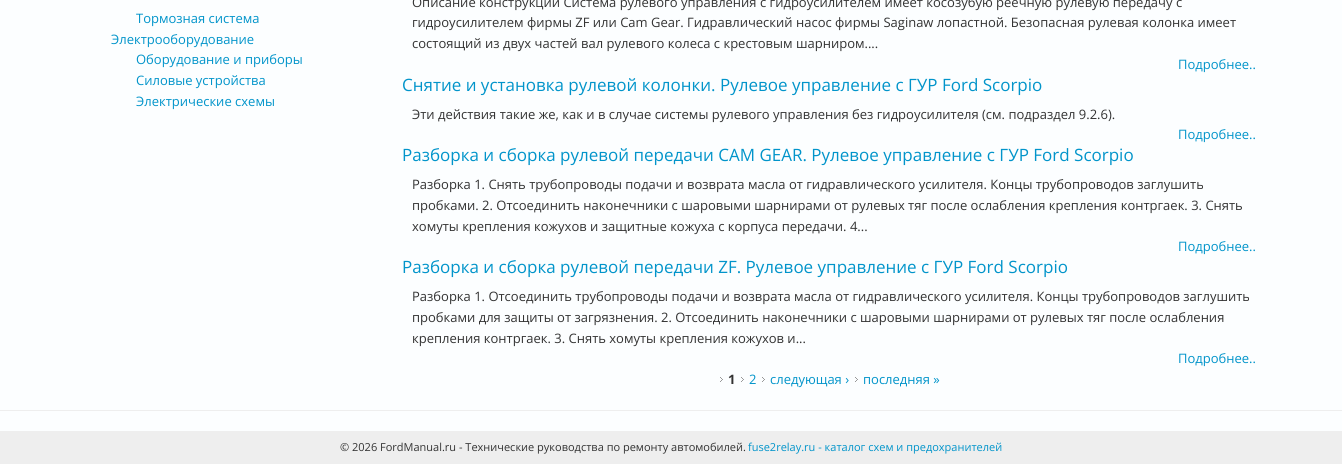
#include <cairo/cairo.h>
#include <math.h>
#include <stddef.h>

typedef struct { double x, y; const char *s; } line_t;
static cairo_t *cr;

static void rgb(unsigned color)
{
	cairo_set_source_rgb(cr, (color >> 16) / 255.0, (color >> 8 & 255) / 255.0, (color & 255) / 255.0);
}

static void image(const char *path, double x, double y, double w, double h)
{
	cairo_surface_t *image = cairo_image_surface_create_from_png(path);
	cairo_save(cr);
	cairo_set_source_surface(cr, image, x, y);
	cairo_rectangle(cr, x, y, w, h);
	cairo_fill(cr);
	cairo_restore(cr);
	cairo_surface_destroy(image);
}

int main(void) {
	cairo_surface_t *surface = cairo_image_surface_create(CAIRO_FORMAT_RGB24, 1342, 464);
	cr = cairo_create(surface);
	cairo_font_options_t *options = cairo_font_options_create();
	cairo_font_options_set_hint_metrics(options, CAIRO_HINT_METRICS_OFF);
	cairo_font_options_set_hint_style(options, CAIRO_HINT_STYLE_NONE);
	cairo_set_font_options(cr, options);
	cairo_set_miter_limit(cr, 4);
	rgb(0xfcfeff);
	cairo_paint(cr);
	image("img/1.png", 720, 377, 3, 5);
	image("img/1.png", 741, 377, 3, 5);
	image("img/1.png", 762, 377, 3, 5);
	image("img/1.png", 855, 377, 3, 5);
	rgb(0xeeeeee);
	cairo_rectangle(cr, 0, 410, 1342, 1);
	cairo_fill(cr);
	cairo_rectangle(cr, 0, 431, 1342, 33);
	cairo_fill(cr);
	cairo_select_font_face(cr, "Open Sans", CAIRO_FONT_SLANT_NORMAL, CAIRO_FONT_WEIGHT_NORMAL);
	cairo_set_font_size(cr, 13);
	rgb(0x0194ca);
	{
		static const line_t items[] = {
			{136, 23, "Тормозная система"},
			{111, 44, "Электрооборудование"},
			{136, 64, "Оборудование и приборы"},
			{136, 85, "Силовые устройства"},
			{136, 106, "Электрические схемы"},
		};
		for (size_t i = 0; i < sizeof items / sizeof *items; i++) {
			cairo_move_to(cr, items[i].x, items[i].y);
			cairo_show_text(cr, items[i].s);
		}
	}
	rgb(0x333333);
	{
		static const line_t items[] = {
			{412, 7, "Описание конструкции Система рулевого управления с гидроусилителем имеет косозубую реечную рулевую передачу с"},
			{412, 27, "гидроусилителем фирмы ZF или Сam Gear. Гидравлический насос фирмы Saginaw лопастной. Безопасная рулевая колонка имеет"},
			{412, 48, "состоящий из двух частей вал рулевого колеса с крестовым шарниром...."},
		};
		for (size_t i = 0; i < sizeof items / sizeof *items; i++) {
			cairo_move_to(cr, items[i].x, items[i].y);
			cairo_show_text(cr, items[i].s);
		}
	}
	rgb(0x0194ca);
	cairo_move_to(cr, 1178, 69);
	cairo_show_text(cr, "Подробнее..");
	cairo_set_font_size(cr, 17);
	cairo_move_to(cr, 402, 91);
	cairo_show_text(cr, "Снятие и установка рулевой колонки. Рулевое управление с ГУР Ford Scorpio");
	cairo_set_font_size(cr, 13);
	rgb(0x333333);
	cairo_move_to(cr, 412, 119);
	cairo_show_text(cr, "Эти действия такие же, как и в случае системы рулевого управления без гидроусилителя (см. подраздел 9.2.6).");
	rgb(0x0194ca);
	cairo_move_to(cr, 1178, 139);
	cairo_show_text(cr, "Подробнее..");
	cairo_set_font_size(cr, 17);
	cairo_move_to(cr, 402, 161);
	cairo_show_text(cr, "Разборка и сборка рулевой передачи CAM GEAR. Рулевое управление с ГУР Ford Scorpio");
	cairo_set_font_size(cr, 13);
	rgb(0x333333);
	{
		static const line_t items[] = {
			{412, 189, "Разборка 1. Снять трубопроводы подачи и возврата масла от гидравлического усилителя. Концы трубопроводов заглушить"},
			{412, 210, "пробками. 2. Отсоединить наконечники с шаровыми шарнирами от рулевых тяг после ослабления крепления контргаек. 3. Снять"},
			{412, 231, "хомуты крепления кожухов и защитные кожуха с корпуса передачи. 4..."},
		};
		for (size_t i = 0; i < sizeof items / sizeof *items; i++) {
			cairo_move_to(cr, items[i].x, items[i].y);
			cairo_show_text(cr, items[i].s);
		}
	}
	rgb(0x0194ca);
	cairo_move_to(cr, 1178, 251);
	cairo_show_text(cr, "Подробнее..");
	cairo_set_font_size(cr, 17);
	cairo_move_to(cr, 402, 273);
	cairo_show_text(cr, "Разборка и сборка рулевой передачи ZF. Рулевое управление с ГУР Ford Scorpio");
	cairo_set_font_size(cr, 13);
	rgb(0x333333);
	{
		static const line_t items[] = {
			{412, 301, "Разборка 1. Отсоединить трубопроводы подачи и возврата масла от гидравлического усилителя. Концы трубопроводов заглушить"},
			{412, 322, "пробками для защиты от загрязнения. 2. Отсоединить наконечники с шаровыми шарнирами от рулевых тяг после ослабления"},
			{412, 343, "крепления контргаек. 3. Снять хомуты крепления кожухов и..."},
		};
		for (size_t i = 0; i < sizeof items / sizeof *items; i++) {
			cairo_move_to(cr, items[i].x, items[i].y);
			cairo_show_text(cr, items[i].s);
		}
	}
	rgb(0x0194ca);
	cairo_move_to(cr, 1178, 363);
	cairo_show_text(cr, "Подробнее..");
	cairo_select_font_face(cr, "Open Sans", CAIRO_FONT_SLANT_NORMAL, CAIRO_FONT_WEIGHT_BOLD);
	rgb(0x333333);
	cairo_move_to(cr, 728, 384);
	cairo_show_text(cr, "1");
	cairo_select_font_face(cr, "Open Sans", CAIRO_FONT_SLANT_NORMAL, CAIRO_FONT_WEIGHT_NORMAL);
	rgb(0x0194ca);
	{
		static const line_t items[] = {
			{749, 384, "2"},
			{770, 384, "следующая ›"},
			{863, 384, "последняя »"},
		};
		for (size_t i = 0; i < sizeof items / sizeof *items; i++) {
			cairo_move_to(cr, items[i].x, items[i].y);
			cairo_show_text(cr, items[i].s);
		}
	}
	cairo_set_font_size(cr, 11);
	rgb(0x333333);
	cairo_move_to(cr, 340, 451);
	cairo_show_text(cr, "© 2026 FordManual.ru - Технические руководства по ремонту автомобилей.");
	rgb(0x0194ca);
	cairo_move_to(cr, 748, 451);
	cairo_show_text(cr, "fuse2relay.ru - каталог схем и предохранителей");
	cairo_surface_write_to_png(surface, "page.png");
	cairo_font_options_destroy(options);
	cairo_destroy(cr);
	cairo_surface_destroy(surface);
	return 0;
}
